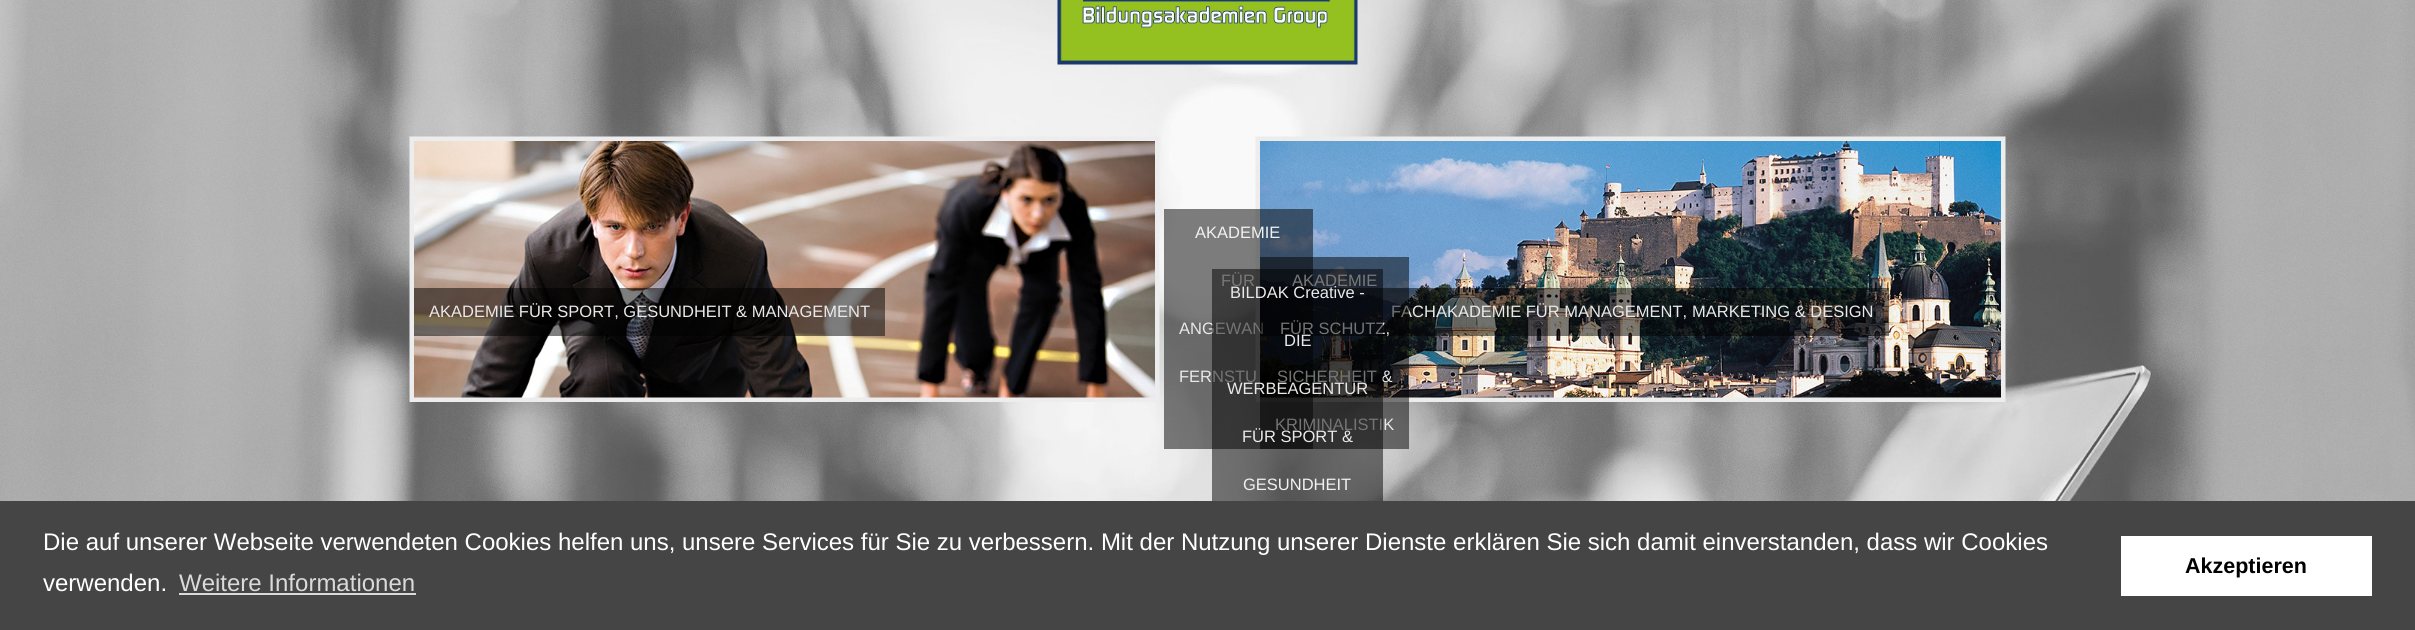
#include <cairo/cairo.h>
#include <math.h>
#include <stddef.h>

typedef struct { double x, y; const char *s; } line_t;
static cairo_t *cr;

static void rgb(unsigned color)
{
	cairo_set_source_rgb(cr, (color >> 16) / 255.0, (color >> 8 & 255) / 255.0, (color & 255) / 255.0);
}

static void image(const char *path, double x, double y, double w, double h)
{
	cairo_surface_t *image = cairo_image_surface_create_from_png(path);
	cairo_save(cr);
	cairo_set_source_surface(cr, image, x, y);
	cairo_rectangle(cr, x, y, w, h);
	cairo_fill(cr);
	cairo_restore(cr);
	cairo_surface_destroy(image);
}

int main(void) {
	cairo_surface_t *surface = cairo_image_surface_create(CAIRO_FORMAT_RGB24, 2415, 630);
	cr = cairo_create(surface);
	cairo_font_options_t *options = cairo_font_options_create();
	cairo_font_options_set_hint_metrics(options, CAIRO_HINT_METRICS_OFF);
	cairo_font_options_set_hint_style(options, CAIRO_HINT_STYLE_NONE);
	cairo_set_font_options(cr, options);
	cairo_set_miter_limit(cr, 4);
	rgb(0xffffff);
	cairo_paint(cr);
	image("img/1.png", 0, 0, 2415, 501);
	image("img/2.png", 1057, 0, 301, 65);
	image("img/4.png", 1255, 136, 751, 266);
	cairo_set_source_rgba(cr, 0, 0, 0, 0.5);
	cairo_rectangle(cr, 1260, 288, 629, 48);
	cairo_fill(cr);
	cairo_rectangle(cr, 1164, 209, 149, 240);
	cairo_fill(cr);
	image("img/3.png", 409, 136, 751, 266);
	cairo_rectangle(cr, 414, 288, 471, 48);
	cairo_fill(cr);
	rgb(0x454545);
	cairo_rectangle(cr, 0, 501, 2415, 129);
	cairo_fill(cr);
	rgb(0xdadada);
	cairo_rectangle(cr, 179, 593, 237, 2);
	cairo_fill(cr);
	rgb(0xffffff);
	cairo_rectangle(cr, 2121, 536, 251, 60);
	cairo_fill(cr);
	cairo_select_font_face(cr, "Liberation Sans", CAIRO_FONT_SLANT_NORMAL, CAIRO_FONT_WEIGHT_NORMAL);
	cairo_set_font_size(cr, 16.5);
	rgb(0xf0f1f1);
	cairo_move_to(cr, 1195, 238);
	cairo_show_text(cr, "AKADEMIE");
	cairo_move_to(cr, 1221, 286);
	cairo_show_text(cr, "FÜR");
	rgb(0xeae9e9);
	{
		static const line_t items[] = {
			{1179, 334, "ANGEWAN"},
			{1179, 382, "FERNSTU"},
			{429, 317, "AKADEMIE FÜR SPORT, GESUNDHEIT & MANAGEMENT"},
			{1391, 317, "FACHAKADEMIE FÜR MANAGEMENT,"},
		};
		for (size_t i = 0; i < sizeof items / sizeof *items; i++) {
			cairo_move_to(cr, items[i].x, items[i].y);
			cairo_show_text(cr, items[i].s);
		}
	}
	cairo_set_source_rgba(cr, 0, 0, 0, 0.5);
	cairo_rectangle(cr, 1260, 257, 149, 192);
	cairo_fill(cr);
	rgb(0xeae9e9);
	{
		static const line_t items[] = {
			{1275, 430, "KRIMINALISTIK"},
			{1277, 382, "SICHERHEIT &"},
			{1280, 334, "FÜR SCHUTZ,"},
		};
		for (size_t i = 0; i < sizeof items / sizeof *items; i++) {
			cairo_move_to(cr, items[i].x, items[i].y);
			cairo_show_text(cr, items[i].s);
		}
	}
	rgb(0xf0f1f1);
	cairo_move_to(cr, 1292, 286);
	cairo_show_text(cr, "AKADEMIE");
	cairo_set_source_rgba(cr, 0, 0, 0, 0.5);
	cairo_rectangle(cr, 1212, 269, 171, 232);
	cairo_fill(cr);
	rgb(0xf0f1f1);
	cairo_move_to(cr, 1243, 490);
	cairo_show_text(cr, "GESUNDHEIT");
	rgb(0xeae9e9);
	{
		static const line_t items[] = {
			{1242, 442, "FÜR SPORT &"},
			{1227, 394, "WERBEAGENTUR"},
			{1284, 346, "DIE"},
			{1230, 298, "BILDAK Creative -"},
			{1692, 317, "MARKETING & DESIGN"},
		};
		for (size_t i = 0; i < sizeof items / sizeof *items; i++) {
			cairo_move_to(cr, items[i].x, items[i].y);
			cairo_show_text(cr, items[i].s);
		}
	}
	cairo_set_font_size(cr, 24);
	rgb(0xffffff);
	cairo_move_to(cr, 43, 550);
	cairo_show_text(cr, "Die auf unserer Webseite verwendeten Cookies helfen uns, unsere Services für Sie zu verbessern. Mit der Nutzung unserer Dienste erklären Sie sich damit einverstanden, dass wir Cookies");
	cairo_move_to(cr, 43, 591);
	cairo_show_text(cr, "verwenden.");
	rgb(0xdadada);
	cairo_move_to(cr, 179, 591);
	cairo_show_text(cr, "Weitere Informationen");
	cairo_select_font_face(cr, "Liberation Sans", CAIRO_FONT_SLANT_NORMAL, CAIRO_FONT_WEIGHT_BOLD);
	cairo_set_font_size(cr, 21.5);
	rgb(0x000000);
	cairo_move_to(cr, 2185, 573);
	cairo_show_text(cr, "Akzeptieren");
	cairo_surface_write_to_png(surface, "page.png");
	cairo_font_options_destroy(options);
	cairo_destroy(cr);
	cairo_surface_destroy(surface);
	return 0;
}
